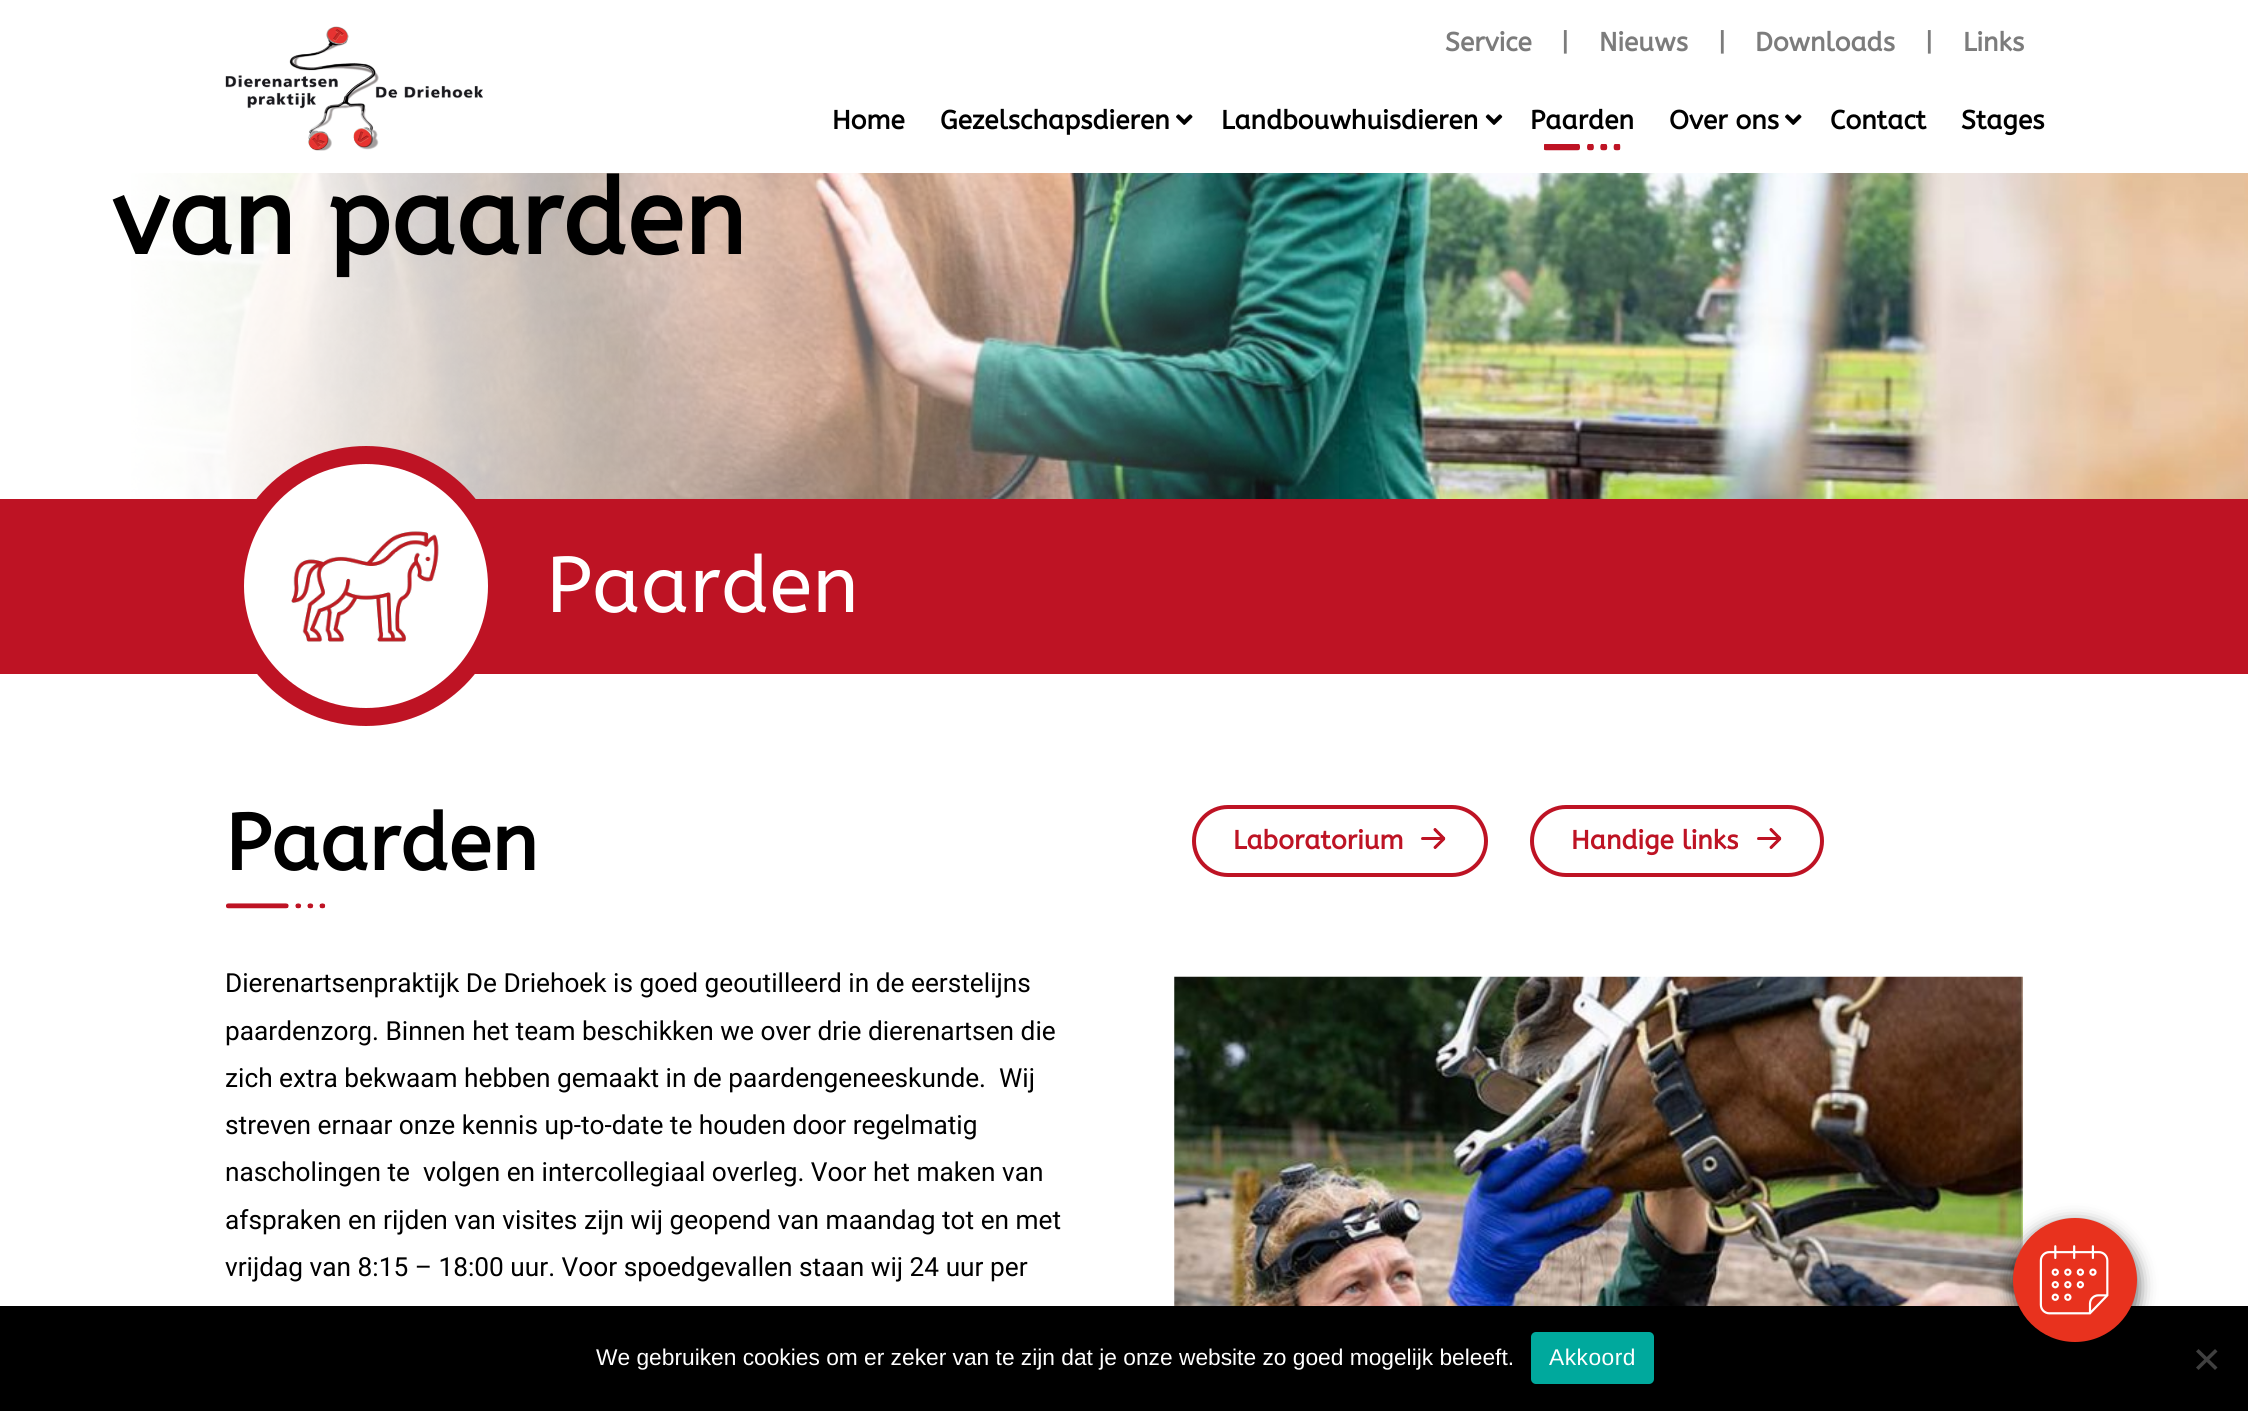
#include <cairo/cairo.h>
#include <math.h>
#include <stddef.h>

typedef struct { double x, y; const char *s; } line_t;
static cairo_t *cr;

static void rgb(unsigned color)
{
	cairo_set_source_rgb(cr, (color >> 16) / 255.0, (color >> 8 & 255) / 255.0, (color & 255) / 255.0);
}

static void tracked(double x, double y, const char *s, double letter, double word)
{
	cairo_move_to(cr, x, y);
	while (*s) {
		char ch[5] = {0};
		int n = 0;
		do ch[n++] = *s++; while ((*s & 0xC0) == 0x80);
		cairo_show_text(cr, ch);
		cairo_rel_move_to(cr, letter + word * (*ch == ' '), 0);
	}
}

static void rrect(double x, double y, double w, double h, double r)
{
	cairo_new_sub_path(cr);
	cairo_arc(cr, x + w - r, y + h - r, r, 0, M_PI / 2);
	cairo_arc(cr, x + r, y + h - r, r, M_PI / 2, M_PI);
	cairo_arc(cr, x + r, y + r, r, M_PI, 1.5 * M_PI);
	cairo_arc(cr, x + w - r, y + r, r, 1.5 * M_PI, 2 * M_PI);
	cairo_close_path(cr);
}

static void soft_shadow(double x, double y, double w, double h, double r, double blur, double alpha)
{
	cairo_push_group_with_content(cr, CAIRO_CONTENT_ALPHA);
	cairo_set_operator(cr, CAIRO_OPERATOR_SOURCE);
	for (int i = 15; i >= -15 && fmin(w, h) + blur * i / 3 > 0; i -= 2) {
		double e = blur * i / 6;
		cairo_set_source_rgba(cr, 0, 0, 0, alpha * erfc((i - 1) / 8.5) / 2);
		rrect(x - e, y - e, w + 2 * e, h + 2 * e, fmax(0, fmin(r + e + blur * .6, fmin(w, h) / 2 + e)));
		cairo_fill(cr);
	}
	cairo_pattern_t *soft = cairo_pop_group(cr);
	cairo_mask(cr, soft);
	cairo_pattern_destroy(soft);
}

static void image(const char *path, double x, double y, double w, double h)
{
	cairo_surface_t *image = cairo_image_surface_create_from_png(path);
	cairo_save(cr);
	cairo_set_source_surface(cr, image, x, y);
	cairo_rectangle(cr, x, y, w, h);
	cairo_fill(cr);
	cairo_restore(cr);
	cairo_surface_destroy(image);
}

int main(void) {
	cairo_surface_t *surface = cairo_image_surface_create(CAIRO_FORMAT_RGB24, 2248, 1411);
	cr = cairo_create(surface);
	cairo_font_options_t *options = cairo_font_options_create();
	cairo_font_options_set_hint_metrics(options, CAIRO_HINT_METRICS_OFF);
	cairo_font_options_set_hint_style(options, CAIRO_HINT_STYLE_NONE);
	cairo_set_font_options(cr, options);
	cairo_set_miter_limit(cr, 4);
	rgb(0xffffff);
	cairo_paint(cr);
	image("img/1.png", 225, 26, 258, 125);
	image("img/2.png", 1176, 114, 17, 11);
	image("img/3.png", 1485, 114, 18, 11);
	image("img/4.png", 1544, 144, 77, 7);
	image("img/2.png", 1785, 114, 17, 11);
	image("img/5.png", 131, 173, 2117, 326);
	image("img/6.png", 0, 173, 1339, 326);
	rgb(0xbe1324);
	cairo_rectangle(cr, 0, 499, 2248, 175);
	cairo_fill(cr);
	rgb(0xffffff);
	cairo_arc(cr, 366, 586, 131, 0, 2 * M_PI);
	cairo_fill_preserve(cr);
	rgb(0xbe1324);
	cairo_set_line_width(cr, 18);
	cairo_stroke(cr);
	image("img/7.png", 291, 531, 148, 111);
	image("img/8.png", 226, 903, 100, 6);
	rrect(1194, 807, 292, 68, 34);
	cairo_set_line_width(cr, 4);
	cairo_stroke(cr);
	image("img/9.png", 1421, 828, 25, 21);
	rrect(1532, 807, 290, 68, 34);
	cairo_stroke(cr);
	image("img/10.png", 1757, 828, 25, 21);
	image("img/11.png", 1174, 976, 849, 330);
	rgb(0x000000);
	cairo_rectangle(cr, 0, 1306, 2248, 105);
	cairo_fill(cr);
	rgb(0x000000);
	soft_shadow(2013, 1225, 124, 124, 62, 9, 0.7);
	rgb(0xe8321e);
	cairo_arc(cr, 2075, 1280, 62, 0, 2 * M_PI);
	cairo_fill(cr);
	image("img/12.png", 2039, 1245, 70, 70);
	rgb(0x00a99d);
	rrect(1531, 1332, 123, 52, 5);
	cairo_fill(cr);
	rgb(0x404040);
	cairo_new_path(cr);
	cairo_move_to(cr, 2215, 1349);
	cairo_line_to(cr, 2217.5, 1351.5);
	cairo_line_to(cr, 2198.5, 1370);
	cairo_line_to(cr, 2196, 1367.5);
	cairo_close_path(cr);
	cairo_fill(cr);
	cairo_new_path(cr);
	cairo_move_to(cr, 2196, 1351.5);
	cairo_line_to(cr, 2198.5, 1349);
	cairo_line_to(cr, 2217.5, 1367.5);
	cairo_line_to(cr, 2215, 1370);
	cairo_close_path(cr);
	cairo_fill(cr);
	cairo_select_font_face(cr, "ABeeZee", CAIRO_FONT_SLANT_NORMAL, CAIRO_FONT_WEIGHT_BOLD);
	cairo_set_font_size(cr, 26.25);
	rgb(0x7c7c7c);
	{
		static const line_t items[] = {
			{1445, 51, "Service"},
			{1561, 51, "|"},
			{1599, 51, "Nieuws"},
			{1718, 51, "|"},
			{1755, 51, "Downloads"},
			{1925, 51, "|"},
			{1963, 51, "Links"},
		};
		for (size_t i = 0; i < sizeof items / sizeof *items; i++) {
			cairo_move_to(cr, items[i].x, items[i].y);
			cairo_show_text(cr, items[i].s);
		}
	}
	rgb(0x000000);
	{
		static const line_t items[] = {
			{832, 129, "Home"},
			{940, 129, "Gezelschapsdieren"},
			{1221, 129, "Landbouwhuisdieren"},
			{1530, 129, "Paarden"},
			{1669, 129, "Over ons"},
			{1830, 129, "Contact"},
			{1961, 129, "Stages"},
		};
		for (size_t i = 0; i < sizeof items / sizeof *items; i++) {
			cairo_move_to(cr, items[i].x, items[i].y);
			cairo_show_text(cr, items[i].s);
		}
	}
	cairo_set_font_size(cr, 105);
	cairo_move_to(cr, 112, 254);
	cairo_show_text(cr, "van paarden");
	cairo_select_font_face(cr, "ABeeZee", CAIRO_FONT_SLANT_NORMAL, CAIRO_FONT_WEIGHT_NORMAL);
	cairo_set_font_size(cr, 79);
	rgb(0xffffff);
	cairo_move_to(cr, 546, 612);
	cairo_show_text(cr, "Paarden");
	cairo_select_font_face(cr, "ABeeZee", CAIRO_FONT_SLANT_NORMAL, CAIRO_FONT_WEIGHT_BOLD);
	rgb(0x000000);
	cairo_move_to(cr, 225, 870);
	cairo_show_text(cr, "Paarden");
	cairo_select_font_face(cr, "Roboto", CAIRO_FONT_SLANT_NORMAL, CAIRO_FONT_WEIGHT_NORMAL);
	cairo_set_font_size(cr, 26.25);
	{
		static const line_t items[] = {
			{225, 992, "Dierenartsenpraktijk De Driehoek is goed geoutilleerd in de eerstelijns"},
			{225, 1040, "paardenzorg. Binnen het team beschikken we over drie dierenartsen die"},
			{225, 1087, "zich extra bekwaam hebben gemaakt in de paardengeneeskunde.  Wij"},
			{225, 1134, "streven ernaar onze kennis up-to-date te houden door regelmatig"},
			{225, 1181, "nascholingen te  volgen en intercollegiaal overleg. Voor het maken van"},
			{225, 1229, "afspraken en rijden van visites zijn wij geopend van maandag tot en met"},
			{225, 1276, "vrijdag van 8:15 – 18:00 uur. Voor spoedgevallen staan wij 24 uur per"},
		};
		for (size_t i = 0; i < sizeof items / sizeof *items; i++) {
			cairo_move_to(cr, items[i].x, items[i].y);
			cairo_show_text(cr, items[i].s);
		}
	}
	cairo_select_font_face(cr, "ABeeZee", CAIRO_FONT_SLANT_NORMAL, CAIRO_FONT_WEIGHT_BOLD);
	rgb(0xbe1324);
	cairo_move_to(cr, 1233, 849);
	cairo_show_text(cr, "Laboratorium");
	cairo_move_to(cr, 1571, 849);
	cairo_show_text(cr, "Handige links");
	cairo_select_font_face(cr, "Liberation Sans", CAIRO_FONT_SLANT_NORMAL, CAIRO_FONT_WEIGHT_NORMAL);
	cairo_set_font_size(cr, 22.75);
	rgb(0xffffff);
	cairo_move_to(cr, 596, 1365);
	cairo_show_text(cr, "We gebruiken cookies om er zeker van te zijn dat je onze website zo goed mogelijk beleeft.");
	tracked(1549, 1365, "Akkoord", 0.5, 0);
	cairo_surface_write_to_png(surface, "page.png");
	cairo_font_options_destroy(options);
	cairo_destroy(cr);
	cairo_surface_destroy(surface);
	return 0;
}
